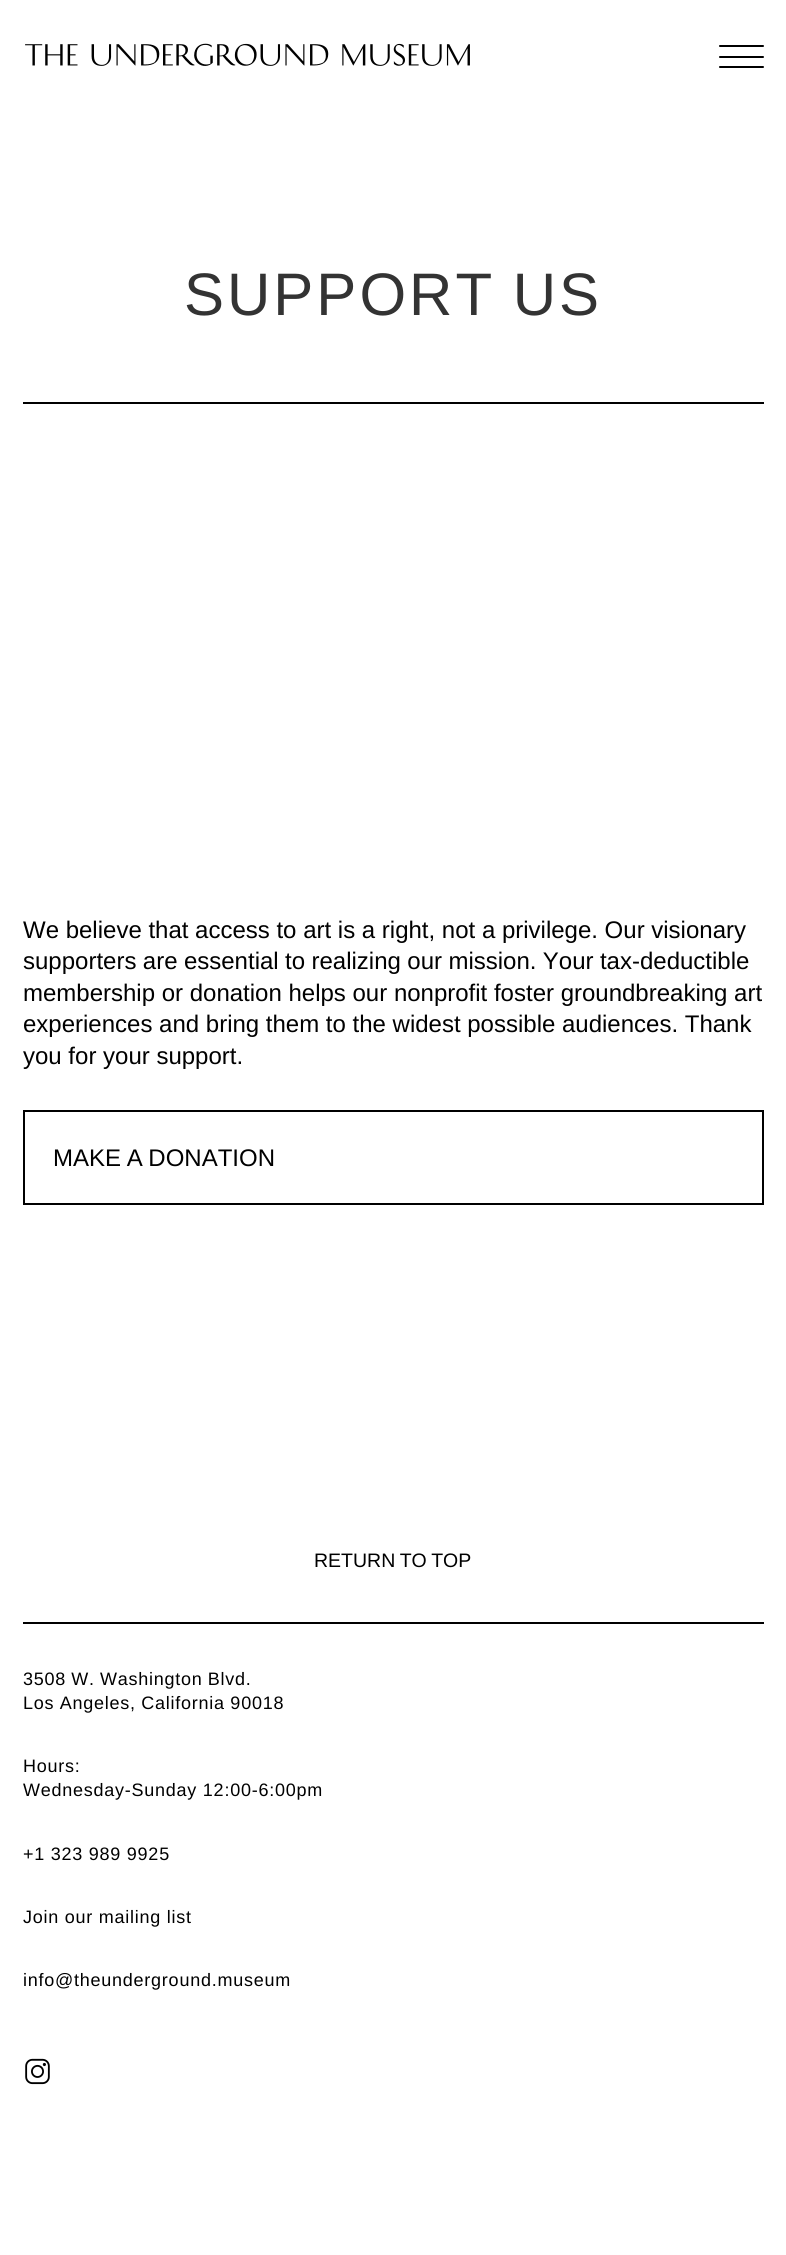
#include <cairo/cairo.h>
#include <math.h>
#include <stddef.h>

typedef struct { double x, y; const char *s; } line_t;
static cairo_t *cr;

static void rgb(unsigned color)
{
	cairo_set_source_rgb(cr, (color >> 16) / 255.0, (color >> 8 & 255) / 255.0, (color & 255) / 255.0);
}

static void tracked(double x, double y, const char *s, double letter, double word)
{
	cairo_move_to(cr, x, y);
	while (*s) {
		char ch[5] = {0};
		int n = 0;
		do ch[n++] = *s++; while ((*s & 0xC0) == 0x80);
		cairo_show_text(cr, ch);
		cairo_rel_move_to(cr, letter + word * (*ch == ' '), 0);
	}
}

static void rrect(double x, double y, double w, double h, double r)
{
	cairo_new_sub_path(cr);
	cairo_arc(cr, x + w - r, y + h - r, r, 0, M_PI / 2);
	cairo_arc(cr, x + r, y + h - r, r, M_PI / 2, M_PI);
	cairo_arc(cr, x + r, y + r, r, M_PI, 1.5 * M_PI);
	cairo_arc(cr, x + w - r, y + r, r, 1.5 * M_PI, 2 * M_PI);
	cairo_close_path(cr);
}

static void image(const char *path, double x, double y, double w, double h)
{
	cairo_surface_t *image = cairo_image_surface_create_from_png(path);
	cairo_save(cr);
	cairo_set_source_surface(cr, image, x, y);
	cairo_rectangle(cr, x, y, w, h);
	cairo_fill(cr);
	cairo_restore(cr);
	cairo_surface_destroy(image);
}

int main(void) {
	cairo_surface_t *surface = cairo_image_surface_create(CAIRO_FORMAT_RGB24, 786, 2255);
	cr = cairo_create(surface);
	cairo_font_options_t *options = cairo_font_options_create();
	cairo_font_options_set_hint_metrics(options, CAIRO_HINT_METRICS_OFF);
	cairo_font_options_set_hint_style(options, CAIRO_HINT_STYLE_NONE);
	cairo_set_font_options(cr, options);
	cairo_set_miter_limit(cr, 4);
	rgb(0xffffff);
	cairo_paint(cr);
	image("img/1.png", 25, 43, 445, 23);
	rgb(0x000000);
	rrect(719, 66, 45, 2, 1);
	cairo_fill(cr);
	rrect(719, 45, 45, 2, 1);
	cairo_fill(cr);
	rrect(719, 56, 45, 2, 1);
	cairo_fill(cr);
	cairo_rectangle(cr, 23, 402, 741, 2);
	cairo_fill(cr);
	cairo_rectangle(cr, 24, 1111, 739, 93);
	cairo_stroke(cr);
	cairo_rectangle(cr, 23, 1622, 741, 2);
	cairo_fill(cr);
	image("img/2.png", 25, 2058, 25, 27);
	cairo_select_font_face(cr, "Liberation Sans", CAIRO_FONT_SLANT_NORMAL, CAIRO_FONT_WEIGHT_NORMAL);
	cairo_set_font_size(cr, 60);
	rgb(0x333333);
	tracked(184, 315, "SUPPORT US", 3, -2);
	cairo_set_font_size(cr, 24);
	rgb(0x000000);
	cairo_move_to(cr, 23, 938);
	cairo_show_text(cr, "We believe that access to art is a right, not a privilege. Our visionary");
	tracked(23, 969, "supporters are essential to realizing our mission. Your tax-deductible", 0, -0.25);
	{
		static const line_t items[] = {
			{23, 1001, "membership or donation helps our nonprofit foster groundbreaking art"},
			{23, 1032, "experiences and bring them to the widest possible audiences. Thank"},
			{23, 1064, "you for your support."},
		};
		for (size_t i = 0; i < sizeof items / sizeof *items; i++) {
			cairo_move_to(cr, items[i].x, items[i].y);
			cairo_show_text(cr, items[i].s);
		}
	}
	tracked(53, 1166, "MAKE A DONATION", 0, -1);
	cairo_set_font_size(cr, 19.5);
	tracked(314, 1567, "RETURN TO TOP", 0, -1);
	cairo_set_font_size(cr, 18);
	tracked(23, 1685, "3508 W. Washington Blvd.", 0.75, -0.5);
	tracked(23, 1709, "Los Angeles, California 90018", 0.75, -0.25);
	{
		static const line_t items[] = {
			{23, 1772, "Hours:"},
			{23, 1796, "Wednesday-Sunday 12:00-6:00pm"},
			{23, 1860, "+1 323 989 9925"},
			{23, 1923, "Join our mailing list"},
			{23, 1986, "info@theunderground.museum"},
		};
		for (size_t i = 0; i < sizeof items / sizeof *items; i++) {
			tracked(items[i].x, items[i].y, items[i].s, 0.75, 0);
		}
	}
	cairo_surface_write_to_png(surface, "page.png");
	cairo_font_options_destroy(options);
	cairo_destroy(cr);
	cairo_surface_destroy(surface);
	return 0;
}
